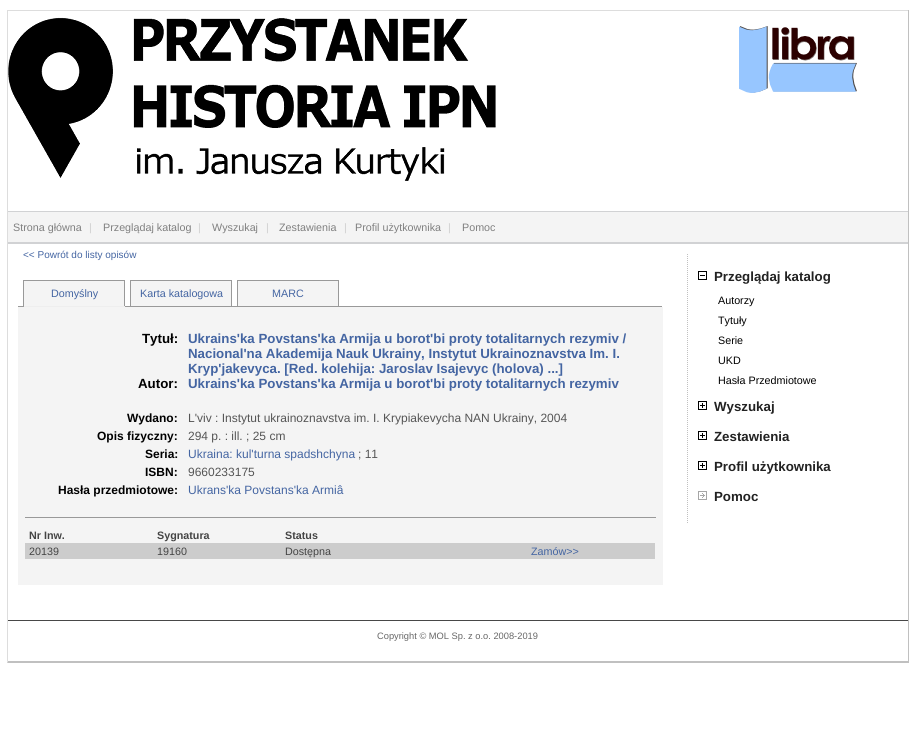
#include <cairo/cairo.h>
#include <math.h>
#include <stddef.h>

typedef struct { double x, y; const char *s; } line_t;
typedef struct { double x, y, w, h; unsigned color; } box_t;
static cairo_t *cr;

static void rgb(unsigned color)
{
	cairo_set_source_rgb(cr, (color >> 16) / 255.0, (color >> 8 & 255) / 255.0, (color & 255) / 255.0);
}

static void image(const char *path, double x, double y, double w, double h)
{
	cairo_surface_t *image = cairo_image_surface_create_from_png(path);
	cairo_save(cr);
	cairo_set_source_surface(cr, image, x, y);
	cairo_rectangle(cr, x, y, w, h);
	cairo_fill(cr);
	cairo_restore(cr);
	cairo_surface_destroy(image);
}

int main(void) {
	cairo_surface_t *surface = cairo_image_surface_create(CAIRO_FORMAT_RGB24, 916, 752);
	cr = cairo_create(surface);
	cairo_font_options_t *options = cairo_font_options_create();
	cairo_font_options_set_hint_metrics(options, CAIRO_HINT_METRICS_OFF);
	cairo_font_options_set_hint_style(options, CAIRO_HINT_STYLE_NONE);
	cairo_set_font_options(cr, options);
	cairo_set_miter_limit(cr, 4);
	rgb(0xffffff);
	cairo_paint(cr);
	rgb(0xdddddd);
	cairo_rectangle(cr, 7, 10, 902, 1);
	cairo_fill(cr);
	rgb(0xc0c0c0);
	cairo_rectangle(cr, 908, 10, 1, 653);
	cairo_fill(cr);
	cairo_new_path(cr);
	cairo_move_to(cr, 909, 663);
	cairo_line_to(cr, 7, 663);
	cairo_line_to(cr, 8, 661);
	cairo_line_to(cr, 908, 661);
	cairo_close_path(cr);
	cairo_fill(cr);
	rgb(0xdddddd);
	cairo_new_path(cr);
	cairo_move_to(cr, 7, 663);
	cairo_line_to(cr, 7, 10);
	cairo_line_to(cr, 8, 11);
	cairo_line_to(cr, 8, 661);
	cairo_close_path(cr);
	cairo_fill(cr);
	image("img/1.png", 8, 17, 488, 164);
	image("img/2.png", 739, 26, 118, 67);
	{
		static const box_t items[] = {
			{8, 212, 900, 30, 0xf4f4f4},
			{8, 211, 900, 1, 0xd1d2d4},
			{8, 242, 900, 2, 0xd1d2d4},
			{24, 281, 100, 25, 0xf4f4f4},
			{23, 280, 102, 1, 0x999999},
			{124, 280, 1, 27, 0x999999},
			{23, 306, 102, 1, 0xeeeeee},
			{23, 280, 1, 27, 0x999999},
		};
		for (size_t i = 0; i < sizeof items / sizeof *items; i++) {
			rgb(items[i].color);
			cairo_rectangle(cr, items[i].x, items[i].y, items[i].w, items[i].h);
			cairo_fill(cr);
		}
	}
	rgb(0xf4f4f4);
	cairo_rectangle(cr, 130.5, 280.5, 101, 26);
	cairo_fill_preserve(cr);
	rgb(0x999999);
	cairo_set_line_width(cr, 1);
	cairo_stroke(cr);
	rgb(0xf4f4f4);
	cairo_rectangle(cr, 237.5, 280.5, 101, 26);
	cairo_fill_preserve(cr);
	rgb(0x999999);
	cairo_stroke(cr);
	{
		static const box_t items[] = {
			{18, 306, 5, 1, 0x999999},
			{125, 306, 5, 1, 0x999999},
			{232, 306, 5, 1, 0x999999},
			{339, 306, 323, 1, 0x999999},
			{18, 307, 645, 278, 0xf4f4f4},
			{25, 517, 631, 1, 0x999999},
			{25, 543, 630, 16, 0xcccccc},
		};
		for (size_t i = 0; i < sizeof items / sizeof *items; i++) {
			rgb(items[i].color);
			cairo_rectangle(cr, items[i].x, items[i].y, items[i].w, items[i].h);
			cairo_fill(cr);
		}
	}
	cairo_new_path(cr);
	cairo_move_to(cr, 687.5, 254);
	cairo_line_to(cr, 687.5, 524);
	rgb(0xc0c0c0);
	cairo_set_dash(cr, (double[]){1, 1}, 2, 0);
	cairo_stroke(cr);
	image("img/3.png", 698, 271, 9, 9);
	image("img/4.png", 698, 401, 9, 9);
	image("img/4.png", 698, 431, 9, 9);
	image("img/4.png", 698, 461, 9, 9);
	image("img/5.png", 698, 491, 9, 9);
	rgb(0x474747);
	cairo_rectangle(cr, 8, 620, 900, 1);
	cairo_fill(cr);
	cairo_select_font_face(cr, "Liberation Sans", CAIRO_FONT_SLANT_NORMAL, CAIRO_FONT_WEIGHT_NORMAL);
	cairo_set_font_size(cr, 10.75);
	rgb(0x808080);
	cairo_move_to(cr, 13, 231);
	cairo_show_text(cr, "Strona główna");
	rgb(0xcfcfcf);
	cairo_move_to(cr, 89, 231);
	cairo_show_text(cr, "|");
	rgb(0x808080);
	cairo_move_to(cr, 103, 231);
	cairo_show_text(cr, "Przeglądaj katalog");
	rgb(0xcfcfcf);
	cairo_move_to(cr, 198, 231);
	cairo_show_text(cr, "|");
	rgb(0x808080);
	cairo_move_to(cr, 212, 231);
	cairo_show_text(cr, "Wyszukaj");
	rgb(0xcfcfcf);
	cairo_move_to(cr, 266, 231);
	cairo_show_text(cr, "|");
	rgb(0x808080);
	cairo_move_to(cr, 279, 231);
	cairo_show_text(cr, "Zestawienia");
	rgb(0xcfcfcf);
	cairo_move_to(cr, 344, 231);
	cairo_show_text(cr, "|");
	rgb(0x808080);
	cairo_move_to(cr, 355, 231);
	cairo_show_text(cr, "Profil użytkownika");
	rgb(0xcfcfcf);
	cairo_move_to(cr, 448, 231);
	cairo_show_text(cr, "|");
	rgb(0x808080);
	cairo_move_to(cr, 462, 231);
	cairo_show_text(cr, "Pomoc");
	cairo_set_font_size(cr, 10);
	rgb(0x4465a2);
	cairo_move_to(cr, 23, 258);
	cairo_show_text(cr, "<< Powrót do listy opisów");
	cairo_set_font_size(cr, 10.75);
	{
		static const line_t items[] = {
			{51, 297, "Domyślny"},
			{140, 297, "Karta katalogowa"},
			{272, 297, "MARC"},
		};
		for (size_t i = 0; i < sizeof items / sizeof *items; i++) {
			cairo_move_to(cr, items[i].x, items[i].y);
			cairo_show_text(cr, items[i].s);
		}
	}
	cairo_select_font_face(cr, "Liberation Sans", CAIRO_FONT_SLANT_NORMAL, CAIRO_FONT_WEIGHT_BOLD);
	cairo_set_font_size(cr, 13.3);
	rgb(0x000000);
	cairo_move_to(cr, 142, 343);
	cairo_show_text(cr, "Tytuł:");
	rgb(0x4465a2);
	{
		static const line_t items[] = {
			{188, 343, "Ukrains'ka Povstans'ka Armija u borot'bi proty totalitarnych rezymiv /"},
			{188, 358, "Nacional'na Akademija Nauk Ukrainy, Instytut Ukrainoznavstva Im. I."},
			{188, 373, "Kryp'jakevyca. [Red. kolehija: Jaroslav Isajevyc (holova) ...]"},
		};
		for (size_t i = 0; i < sizeof items / sizeof *items; i++) {
			cairo_move_to(cr, items[i].x, items[i].y);
			cairo_show_text(cr, items[i].s);
		}
	}
	rgb(0x000000);
	cairo_move_to(cr, 138, 388);
	cairo_show_text(cr, "Autor:");
	rgb(0x4465a2);
	cairo_move_to(cr, 188, 388);
	cairo_show_text(cr, "Ukrains'ka Povstans'ka Armija u borot'bi proty totalitarnych rezymiv");
	cairo_set_font_size(cr, 12);
	rgb(0x000000);
	cairo_move_to(cr, 127, 422);
	cairo_show_text(cr, "Wydano:");
	cairo_select_font_face(cr, "Liberation Sans", CAIRO_FONT_SLANT_NORMAL, CAIRO_FONT_WEIGHT_NORMAL);
	rgb(0x555555);
	cairo_move_to(cr, 188, 422);
	cairo_show_text(cr, "L'viv : Instytut ukrainoznavstva im. I. Krypiakevycha NAN Ukrainy, 2004");
	cairo_select_font_face(cr, "Liberation Sans", CAIRO_FONT_SLANT_NORMAL, CAIRO_FONT_WEIGHT_BOLD);
	rgb(0x000000);
	cairo_move_to(cr, 97, 440);
	cairo_show_text(cr, "Opis fizyczny:");
	cairo_select_font_face(cr, "Liberation Sans", CAIRO_FONT_SLANT_NORMAL, CAIRO_FONT_WEIGHT_NORMAL);
	rgb(0x555555);
	cairo_move_to(cr, 188, 440);
	cairo_show_text(cr, "294 p. : ill. ; 25 cm");
	cairo_select_font_face(cr, "Liberation Sans", CAIRO_FONT_SLANT_NORMAL, CAIRO_FONT_WEIGHT_BOLD);
	rgb(0x000000);
	cairo_move_to(cr, 145, 458);
	cairo_show_text(cr, "Seria:");
	cairo_select_font_face(cr, "Liberation Sans", CAIRO_FONT_SLANT_NORMAL, CAIRO_FONT_WEIGHT_NORMAL);
	rgb(0x4465a2);
	cairo_move_to(cr, 188, 458);
	cairo_show_text(cr, "Ukraina: kul'turna spadshchyna");
	rgb(0x555555);
	cairo_move_to(cr, 358, 458);
	cairo_show_text(cr, "; 11");
	cairo_select_font_face(cr, "Liberation Sans", CAIRO_FONT_SLANT_NORMAL, CAIRO_FONT_WEIGHT_BOLD);
	rgb(0x000000);
	cairo_move_to(cr, 145, 476);
	cairo_show_text(cr, "ISBN:");
	cairo_select_font_face(cr, "Liberation Sans", CAIRO_FONT_SLANT_NORMAL, CAIRO_FONT_WEIGHT_NORMAL);
	rgb(0x555555);
	cairo_move_to(cr, 188, 476);
	cairo_show_text(cr, "9660233175");
	cairo_select_font_face(cr, "Liberation Sans", CAIRO_FONT_SLANT_NORMAL, CAIRO_FONT_WEIGHT_BOLD);
	rgb(0x000000);
	cairo_move_to(cr, 58, 494);
	cairo_show_text(cr, "Hasła przedmiotowe:");
	cairo_select_font_face(cr, "Liberation Sans", CAIRO_FONT_SLANT_NORMAL, CAIRO_FONT_WEIGHT_NORMAL);
	rgb(0x4465a2);
	cairo_move_to(cr, 188, 494);
	cairo_show_text(cr, "Ukrans'ka Povstans'ka Armiâ");
	cairo_select_font_face(cr, "Liberation Sans", CAIRO_FONT_SLANT_NORMAL, CAIRO_FONT_WEIGHT_BOLD);
	cairo_set_font_size(cr, 10.75);
	rgb(0x444444);
	{
		static const line_t items[] = {
			{29, 539, "Nr Inw."},
			{157, 539, "Sygnatura"},
			{285, 539, "Status"},
		};
		for (size_t i = 0; i < sizeof items / sizeof *items; i++) {
			cairo_move_to(cr, items[i].x, items[i].y);
			cairo_show_text(cr, items[i].s);
		}
	}
	cairo_select_font_face(cr, "Liberation Sans", CAIRO_FONT_SLANT_NORMAL, CAIRO_FONT_WEIGHT_NORMAL);
	{
		static const line_t items[] = {
			{29, 555, "20139"},
			{157, 555, "19160"},
			{285, 555, "Dostępna"},
		};
		for (size_t i = 0; i < sizeof items / sizeof *items; i++) {
			cairo_move_to(cr, items[i].x, items[i].y);
			cairo_show_text(cr, items[i].s);
		}
	}
	rgb(0x4465a2);
	cairo_move_to(cr, 531, 555);
	cairo_show_text(cr, "Zamów>>");
	cairo_select_font_face(cr, "Liberation Sans", CAIRO_FONT_SLANT_NORMAL, CAIRO_FONT_WEIGHT_BOLD);
	cairo_set_font_size(cr, 13.3);
	rgb(0x222222);
	cairo_move_to(cr, 714, 281);
	cairo_show_text(cr, "Przeglądaj katalog");
	cairo_select_font_face(cr, "Liberation Sans", CAIRO_FONT_SLANT_NORMAL, CAIRO_FONT_WEIGHT_NORMAL);
	cairo_set_font_size(cr, 10.75);
	rgb(0x000000);
	{
		static const line_t items[] = {
			{718, 304, "Autorzy"},
			{718, 324, "Tytuły"},
			{718, 344, "Serie"},
			{718, 364, "UKD"},
			{718, 384, "Hasła Przedmiotowe"},
		};
		for (size_t i = 0; i < sizeof items / sizeof *items; i++) {
			cairo_move_to(cr, items[i].x, items[i].y);
			cairo_show_text(cr, items[i].s);
		}
	}
	cairo_select_font_face(cr, "Liberation Sans", CAIRO_FONT_SLANT_NORMAL, CAIRO_FONT_WEIGHT_BOLD);
	cairo_set_font_size(cr, 13.3);
	rgb(0x222222);
	{
		static const line_t items[] = {
			{714, 411, "Wyszukaj"},
			{714, 441, "Zestawienia"},
			{714, 471, "Profil użytkownika"},
			{714, 501, "Pomoc"},
		};
		for (size_t i = 0; i < sizeof items / sizeof *items; i++) {
			cairo_move_to(cr, items[i].x, items[i].y);
			cairo_show_text(cr, items[i].s);
		}
	}
	cairo_select_font_face(cr, "Liberation Sans", CAIRO_FONT_SLANT_NORMAL, CAIRO_FONT_WEIGHT_NORMAL);
	cairo_set_font_size(cr, 9.3);
	rgb(0x676767);
	cairo_move_to(cr, 377, 639);
	cairo_show_text(cr, "Copyright © MOL Sp. z o.o. 2008-2019");
	cairo_surface_write_to_png(surface, "page.png");
	cairo_font_options_destroy(options);
	cairo_destroy(cr);
	cairo_surface_destroy(surface);
	return 0;
}
